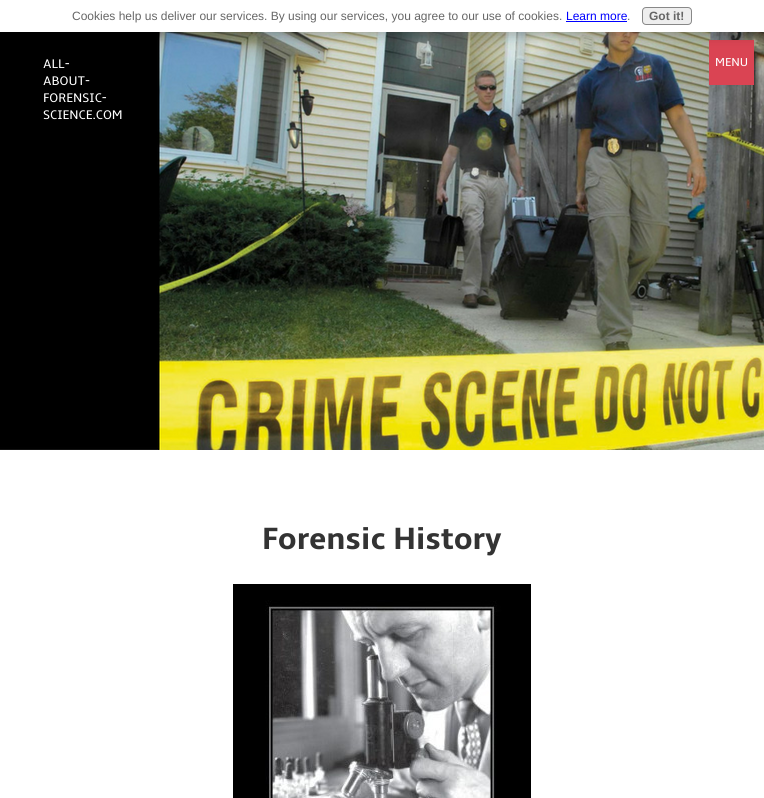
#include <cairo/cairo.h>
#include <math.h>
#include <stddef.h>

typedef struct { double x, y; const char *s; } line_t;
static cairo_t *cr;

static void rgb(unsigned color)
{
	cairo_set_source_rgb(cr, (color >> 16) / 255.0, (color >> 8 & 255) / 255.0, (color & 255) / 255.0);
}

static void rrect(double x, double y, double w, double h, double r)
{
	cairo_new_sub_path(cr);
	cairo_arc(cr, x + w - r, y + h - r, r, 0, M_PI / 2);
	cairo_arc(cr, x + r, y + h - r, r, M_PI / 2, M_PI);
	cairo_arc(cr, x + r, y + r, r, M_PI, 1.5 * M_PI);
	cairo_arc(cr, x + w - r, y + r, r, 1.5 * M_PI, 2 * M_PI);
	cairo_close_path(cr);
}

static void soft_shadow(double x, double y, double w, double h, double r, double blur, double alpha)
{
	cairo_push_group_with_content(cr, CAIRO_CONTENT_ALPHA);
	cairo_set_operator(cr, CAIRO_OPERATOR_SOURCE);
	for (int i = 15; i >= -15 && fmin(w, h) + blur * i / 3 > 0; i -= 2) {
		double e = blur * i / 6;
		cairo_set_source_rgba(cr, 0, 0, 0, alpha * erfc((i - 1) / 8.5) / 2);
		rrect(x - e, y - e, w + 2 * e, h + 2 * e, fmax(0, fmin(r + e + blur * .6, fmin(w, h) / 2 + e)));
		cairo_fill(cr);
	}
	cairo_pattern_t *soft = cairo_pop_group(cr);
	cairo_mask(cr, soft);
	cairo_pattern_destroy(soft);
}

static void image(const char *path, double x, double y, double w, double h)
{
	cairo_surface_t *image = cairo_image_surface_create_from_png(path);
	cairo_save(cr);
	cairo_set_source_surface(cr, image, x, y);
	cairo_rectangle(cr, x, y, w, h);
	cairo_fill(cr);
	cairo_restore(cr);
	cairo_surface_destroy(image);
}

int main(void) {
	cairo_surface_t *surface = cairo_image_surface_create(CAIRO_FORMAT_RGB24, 764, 798);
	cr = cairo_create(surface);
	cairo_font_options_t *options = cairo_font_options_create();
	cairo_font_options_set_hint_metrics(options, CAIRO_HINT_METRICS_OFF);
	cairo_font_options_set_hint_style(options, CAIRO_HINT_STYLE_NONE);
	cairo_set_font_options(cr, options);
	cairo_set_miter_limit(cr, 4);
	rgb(0xffffff);
	cairo_paint(cr);
	image("img/1.png", 0, 32, 764, 418);
	rgb(0xda4453);
	cairo_rectangle(cr, 709, 40, 45, 45);
	cairo_fill(cr);
	rgb(0x000000);
	soft_shadow(-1, 3, 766, 34, 0, 5, 0.2);
	rgb(0xffffff);
	cairo_rectangle(cr, 0, 0, 764, 32);
	cairo_fill(cr);
	rgb(0x0000ff);
	cairo_rectangle(cr, 566, 21, 61, 1);
	cairo_fill(cr);
	rgb(0xeeeeee);
	rrect(642.5, 7.5, 49, 17, 3.5);
	cairo_fill_preserve(cr);
	rgb(0x888888);
	cairo_set_line_width(cr, 1);
	cairo_stroke(cr);
	image("img/2.png", 233, 584, 298, 214);
	cairo_select_font_face(cr, "Liberation Sans", CAIRO_FONT_SLANT_NORMAL, CAIRO_FONT_WEIGHT_NORMAL);
	cairo_set_font_size(cr, 12);
	rgb(0x666666);
	cairo_move_to(cr, 72, 20);
	cairo_show_text(cr, "Cookies help us deliver our services. By using our services, you agree to our use of cookies.");
	rgb(0x0000ff);
	cairo_move_to(cr, 566, 20);
	cairo_show_text(cr, "Learn more");
	rgb(0x666666);
	cairo_move_to(cr, 627, 20);
	cairo_show_text(cr, ".");
	cairo_select_font_face(cr, "Liberation Sans", CAIRO_FONT_SLANT_NORMAL, CAIRO_FONT_WEIGHT_BOLD);
	cairo_move_to(cr, 649, 20);
	cairo_show_text(cr, "Got it!");
	cairo_select_font_face(cr, "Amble", CAIRO_FONT_SLANT_NORMAL, CAIRO_FONT_WEIGHT_NORMAL);
	cairo_set_font_size(cr, 13);
	rgb(0xffffff);
	{
		static const line_t items[] = {
			{43, 68, "ALL-"},
			{43, 85, "ABOUT-"},
			{43, 102, "FORENSIC-"},
			{43, 119, "SCIENCE.COM"},
		};
		for (size_t i = 0; i < sizeof items / sizeof *items; i++) {
			cairo_move_to(cr, items[i].x, items[i].y);
			cairo_show_text(cr, items[i].s);
		}
	}
	cairo_set_font_size(cr, 12);
	cairo_move_to(cr, 715, 66);
	cairo_show_text(cr, "MENU");
	cairo_select_font_face(cr, "Amble", CAIRO_FONT_SLANT_NORMAL, CAIRO_FONT_WEIGHT_BOLD);
	cairo_set_font_size(cr, 32);
	rgb(0x333333);
	cairo_move_to(cr, 262, 549);
	cairo_show_text(cr, "Forensic History");
	cairo_surface_write_to_png(surface, "page.png");
	cairo_font_options_destroy(options);
	cairo_destroy(cr);
	cairo_surface_destroy(surface);
	return 0;
}
